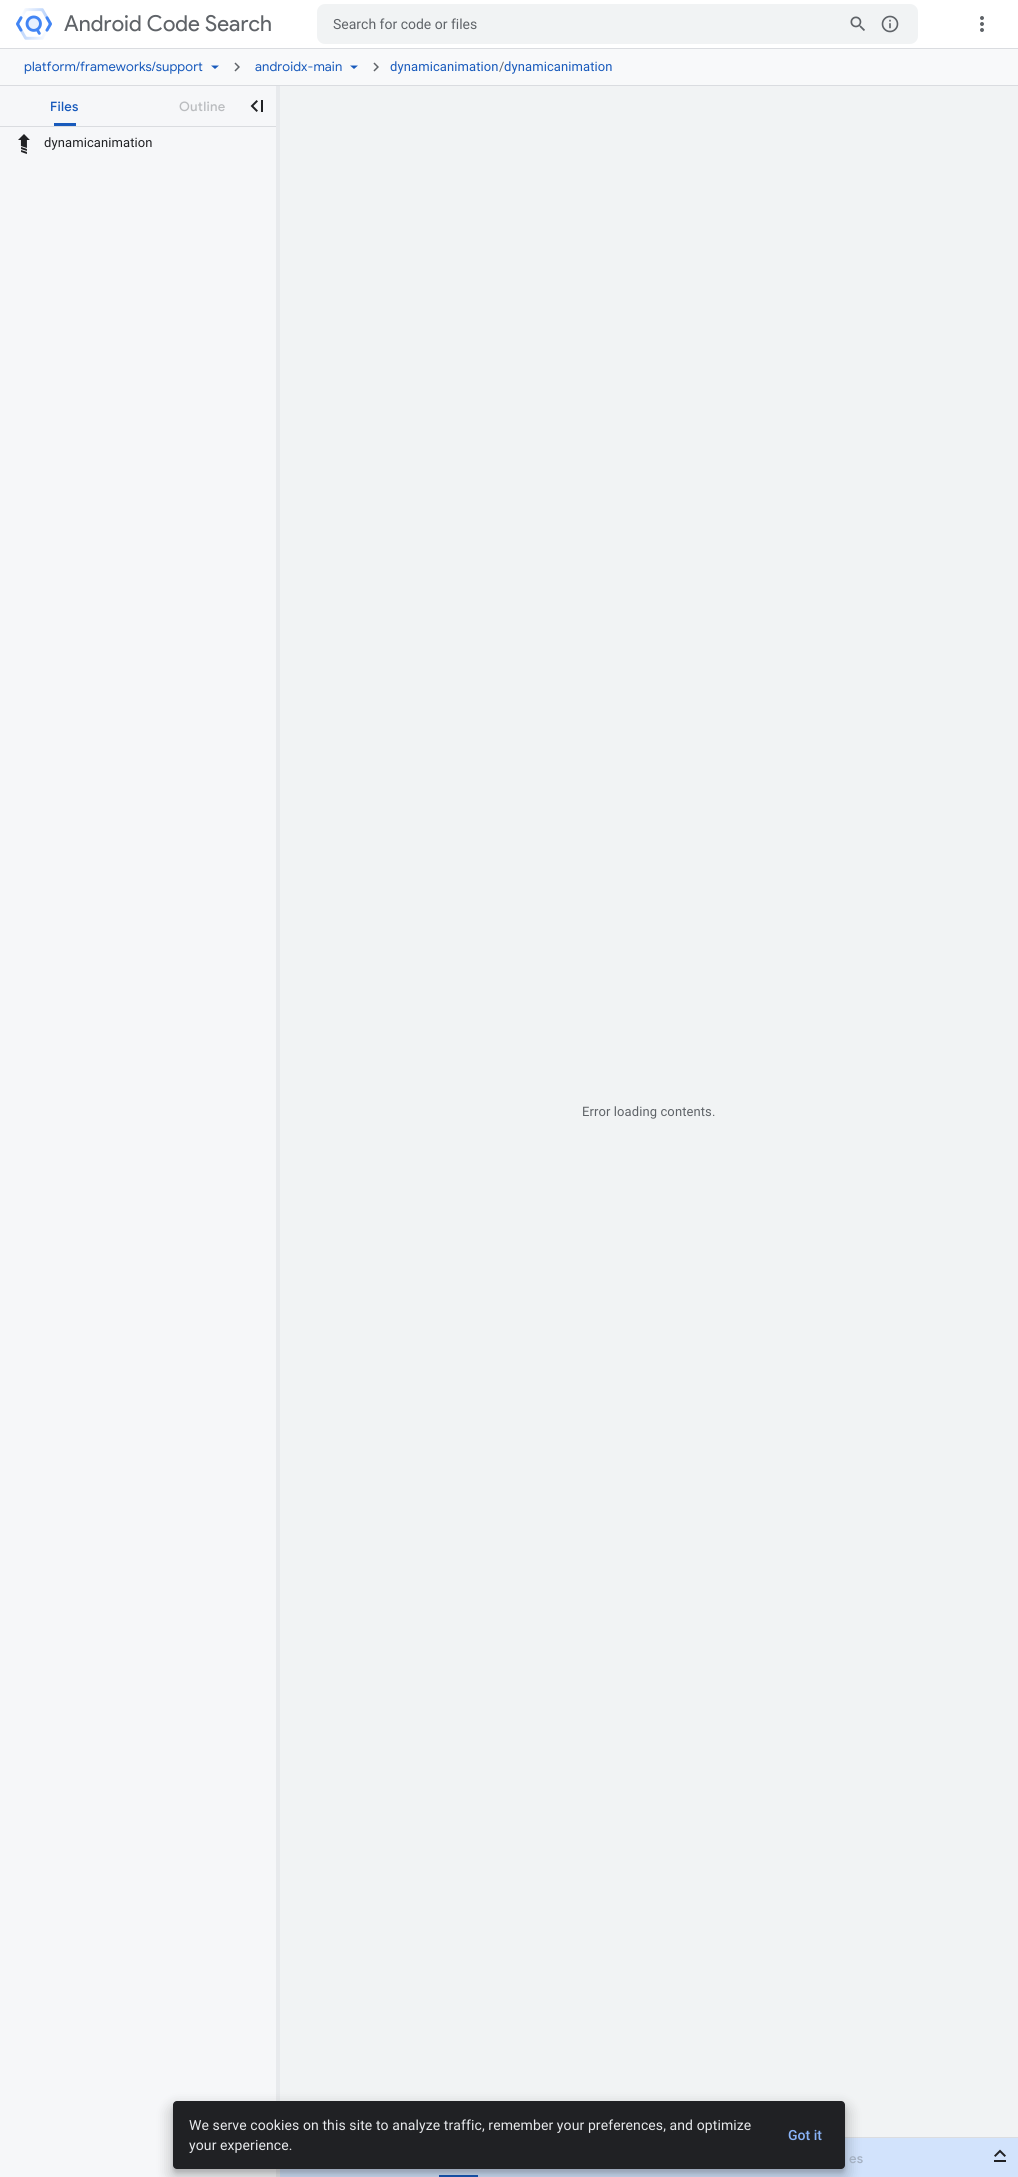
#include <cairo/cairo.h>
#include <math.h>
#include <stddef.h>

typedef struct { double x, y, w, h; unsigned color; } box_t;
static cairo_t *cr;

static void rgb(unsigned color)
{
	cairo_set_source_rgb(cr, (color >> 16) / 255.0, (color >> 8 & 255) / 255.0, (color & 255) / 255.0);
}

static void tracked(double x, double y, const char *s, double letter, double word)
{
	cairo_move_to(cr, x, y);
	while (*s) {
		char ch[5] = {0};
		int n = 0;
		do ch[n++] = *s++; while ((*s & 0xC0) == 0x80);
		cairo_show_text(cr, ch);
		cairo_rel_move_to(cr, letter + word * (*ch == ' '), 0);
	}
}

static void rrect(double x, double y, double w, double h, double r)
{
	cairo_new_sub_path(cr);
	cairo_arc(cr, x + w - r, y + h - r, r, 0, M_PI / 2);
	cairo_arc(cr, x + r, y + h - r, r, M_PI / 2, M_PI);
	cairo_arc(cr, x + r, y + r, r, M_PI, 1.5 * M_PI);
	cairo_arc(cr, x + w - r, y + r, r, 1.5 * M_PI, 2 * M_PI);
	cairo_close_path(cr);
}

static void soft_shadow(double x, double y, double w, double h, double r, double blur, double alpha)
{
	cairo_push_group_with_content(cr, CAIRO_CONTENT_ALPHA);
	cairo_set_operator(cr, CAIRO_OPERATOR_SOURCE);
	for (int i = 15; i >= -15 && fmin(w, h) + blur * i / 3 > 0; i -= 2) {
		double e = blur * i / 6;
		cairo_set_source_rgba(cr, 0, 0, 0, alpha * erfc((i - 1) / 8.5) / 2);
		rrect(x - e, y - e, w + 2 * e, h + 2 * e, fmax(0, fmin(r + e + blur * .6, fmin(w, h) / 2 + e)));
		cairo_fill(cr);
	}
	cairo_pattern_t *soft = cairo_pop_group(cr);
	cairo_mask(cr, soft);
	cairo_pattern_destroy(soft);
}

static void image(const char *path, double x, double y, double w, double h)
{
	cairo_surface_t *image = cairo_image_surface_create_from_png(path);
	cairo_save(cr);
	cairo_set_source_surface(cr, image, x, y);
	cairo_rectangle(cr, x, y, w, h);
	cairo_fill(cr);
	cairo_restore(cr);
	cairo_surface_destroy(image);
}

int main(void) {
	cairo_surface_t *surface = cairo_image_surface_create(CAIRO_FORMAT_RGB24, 1018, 2177);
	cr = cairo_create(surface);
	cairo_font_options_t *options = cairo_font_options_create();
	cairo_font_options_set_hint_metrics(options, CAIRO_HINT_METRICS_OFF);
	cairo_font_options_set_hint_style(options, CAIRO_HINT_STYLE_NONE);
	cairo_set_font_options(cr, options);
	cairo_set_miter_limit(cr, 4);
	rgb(0xffffff);
	cairo_paint(cr);
	rgb(0xdadce0);
	cairo_rectangle(cr, 0, 48, 1018, 1);
	cairo_fill(cr);
	image("img/1.png", 16, 8, 36, 32);
	rgb(0xf1f3f4);
	rrect(317, 4, 601, 40, 8);
	cairo_fill(cr);
	image("img/2.png", 850, 16, 15, 15);
	image("img/3.png", 881, 15, 18, 18);
	image("img/4.png", 980, 16, 4, 16);
	rgb(0xdadce0);
	cairo_rectangle(cr, 0, 85, 1018, 1);
	cairo_fill(cr);
	rgb(0xf8f9fa);
	cairo_rectangle(cr, 0, 49, 1018, 36);
	cairo_fill(cr);
	rgb(0x185abc);
	cairo_new_path(cr);
	cairo_move_to(cr, 211, 65.5);
	cairo_line_to(cr, 215, 69);
	cairo_line_to(cr, 219, 65.5);
	cairo_close_path(cr);
	cairo_fill(cr);
	image("img/5.png", 234, 62, 6, 10);
	cairo_new_path(cr);
	cairo_move_to(cr, 350, 65.5);
	cairo_line_to(cr, 354, 69);
	cairo_line_to(cr, 358, 65.5);
	cairo_close_path(cr);
	cairo_fill(cr);
	image("img/5.png", 373, 62, 6, 10);
	{
		static const box_t items[] = {
			{0, 86, 276, 2091, 0xf6f7f9},
			{0, 126, 276, 1, 0xdadce0},
			{54, 123, 22, 3, 0x185abc},
		};
		for (size_t i = 0; i < sizeof items / sizeof *items; i++) {
			rgb(items[i].color);
			cairo_rectangle(cr, items[i].x, items[i].y, items[i].w, items[i].h);
			cairo_fill(cr);
		}
	}
	image("img/6.png", 18, 134, 12, 20);
	image("img/7.png", 250, 100, 13, 12);
	{
		static const box_t items[] = {
			{276, 86, 4, 2091, 0xe8eaed},
			{280, 86, 738, 2051, 0xf1f3f4},
			{845, 2137, 173, 1, 0xdadce0},
			{280, 2138, 738, 39, 0xd2e3fc},
			{439, 2175, 39, 2, 0x185abc},
		};
		for (size_t i = 0; i < sizeof items / sizeof *items; i++) {
			rgb(items[i].color);
			cairo_rectangle(cr, items[i].x, items[i].y, items[i].w, items[i].h);
			cairo_fill(cr);
		}
	}
	image("img/8.png", 994, 2149, 12, 13);
	rgb(0x000000);
	soft_shadow(167, 2103, 684, 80, 10, 6, 0.15);
	soft_shadow(173, 2105, 672, 68, 4, 2, 0.15);
	rgb(0x202124);
	rrect(173, 2101, 672, 68, 4);
	cairo_fill(cr);
	cairo_select_font_face(cr, "Product Sans", CAIRO_FONT_SLANT_NORMAL, CAIRO_FONT_WEIGHT_NORMAL);
	cairo_set_font_size(cr, 22);
	rgb(0x5f6368);
	tracked(64, 31, "Android Code Search", 0.1, 0);
	cairo_select_font_face(cr, "Roboto", CAIRO_FONT_SLANT_NORMAL, CAIRO_FONT_WEIGHT_NORMAL);
	cairo_set_font_size(cr, 14);
	cairo_move_to(cr, 333, 29);
	cairo_show_text(cr, "Search for code or files");
	cairo_select_font_face(cr, "Google Sans", CAIRO_FONT_SLANT_NORMAL, CAIRO_FONT_WEIGHT_NORMAL);
	cairo_set_font_size(cr, 13);
	rgb(0x185abc);
	tracked(24, 71, "platform/frameworks/support", 0.1, 0);
	tracked(255, 71, "androidx-main", 0.1, 0);
	cairo_select_font_face(cr, "Roboto", CAIRO_FONT_SLANT_NORMAL, CAIRO_FONT_WEIGHT_NORMAL);
	tracked(390, 71, "dynamicanimation", 0.1, 0);
	rgb(0x5f6368);
	tracked(499, 71, "/", 0.1, 0);
	rgb(0x185abc);
	tracked(504, 71, "dynamicanimation", 0.1, 0);
	cairo_select_font_face(cr, "Google Sans Medium", CAIRO_FONT_SLANT_NORMAL, CAIRO_FONT_WEIGHT_NORMAL);
	tracked(50, 111, "Files", 0.25, 0);
	rgb(0xbabcbf);
	tracked(179, 111, "Outline", 0.25, 0);
	cairo_select_font_face(cr, "Roboto", CAIRO_FONT_SLANT_NORMAL, CAIRO_FONT_WEIGHT_NORMAL);
	rgb(0x202124);
	tracked(44, 147, "dynamicanimation", 0.1, 0);
	rgb(0x5f6368);
	tracked(582, 1116, "Error loading contents.", 0.1, 0);
	cairo_select_font_face(cr, "Google Sans Medium", CAIRO_FONT_SLANT_NORMAL, CAIRO_FONT_WEIGHT_NORMAL);
	rgb(0xa4b0c1);
	tracked(849, 2163, "es", 0.25, 0);
	cairo_select_font_face(cr, "Roboto", CAIRO_FONT_SLANT_NORMAL, CAIRO_FONT_WEIGHT_NORMAL);
	cairo_set_font_size(cr, 14);
	rgb(0xe8eaed);
	tracked(189, 2130, "We serve cookies on this site to analyze traffic, remember your preferences, and optimize", 0.1, 0);
	tracked(189, 2150, "your experience.", 0.1, 0);
	cairo_select_font_face(cr, "Roboto Medium", CAIRO_FONT_SLANT_NORMAL, CAIRO_FONT_WEIGHT_NORMAL);
	rgb(0x8ab4f8);
	cairo_move_to(cr, 788, 2140);
	cairo_show_text(cr, "Got it");
	cairo_surface_write_to_png(surface, "page.png");
	cairo_font_options_destroy(options);
	cairo_destroy(cr);
	cairo_surface_destroy(surface);
	return 0;
}
